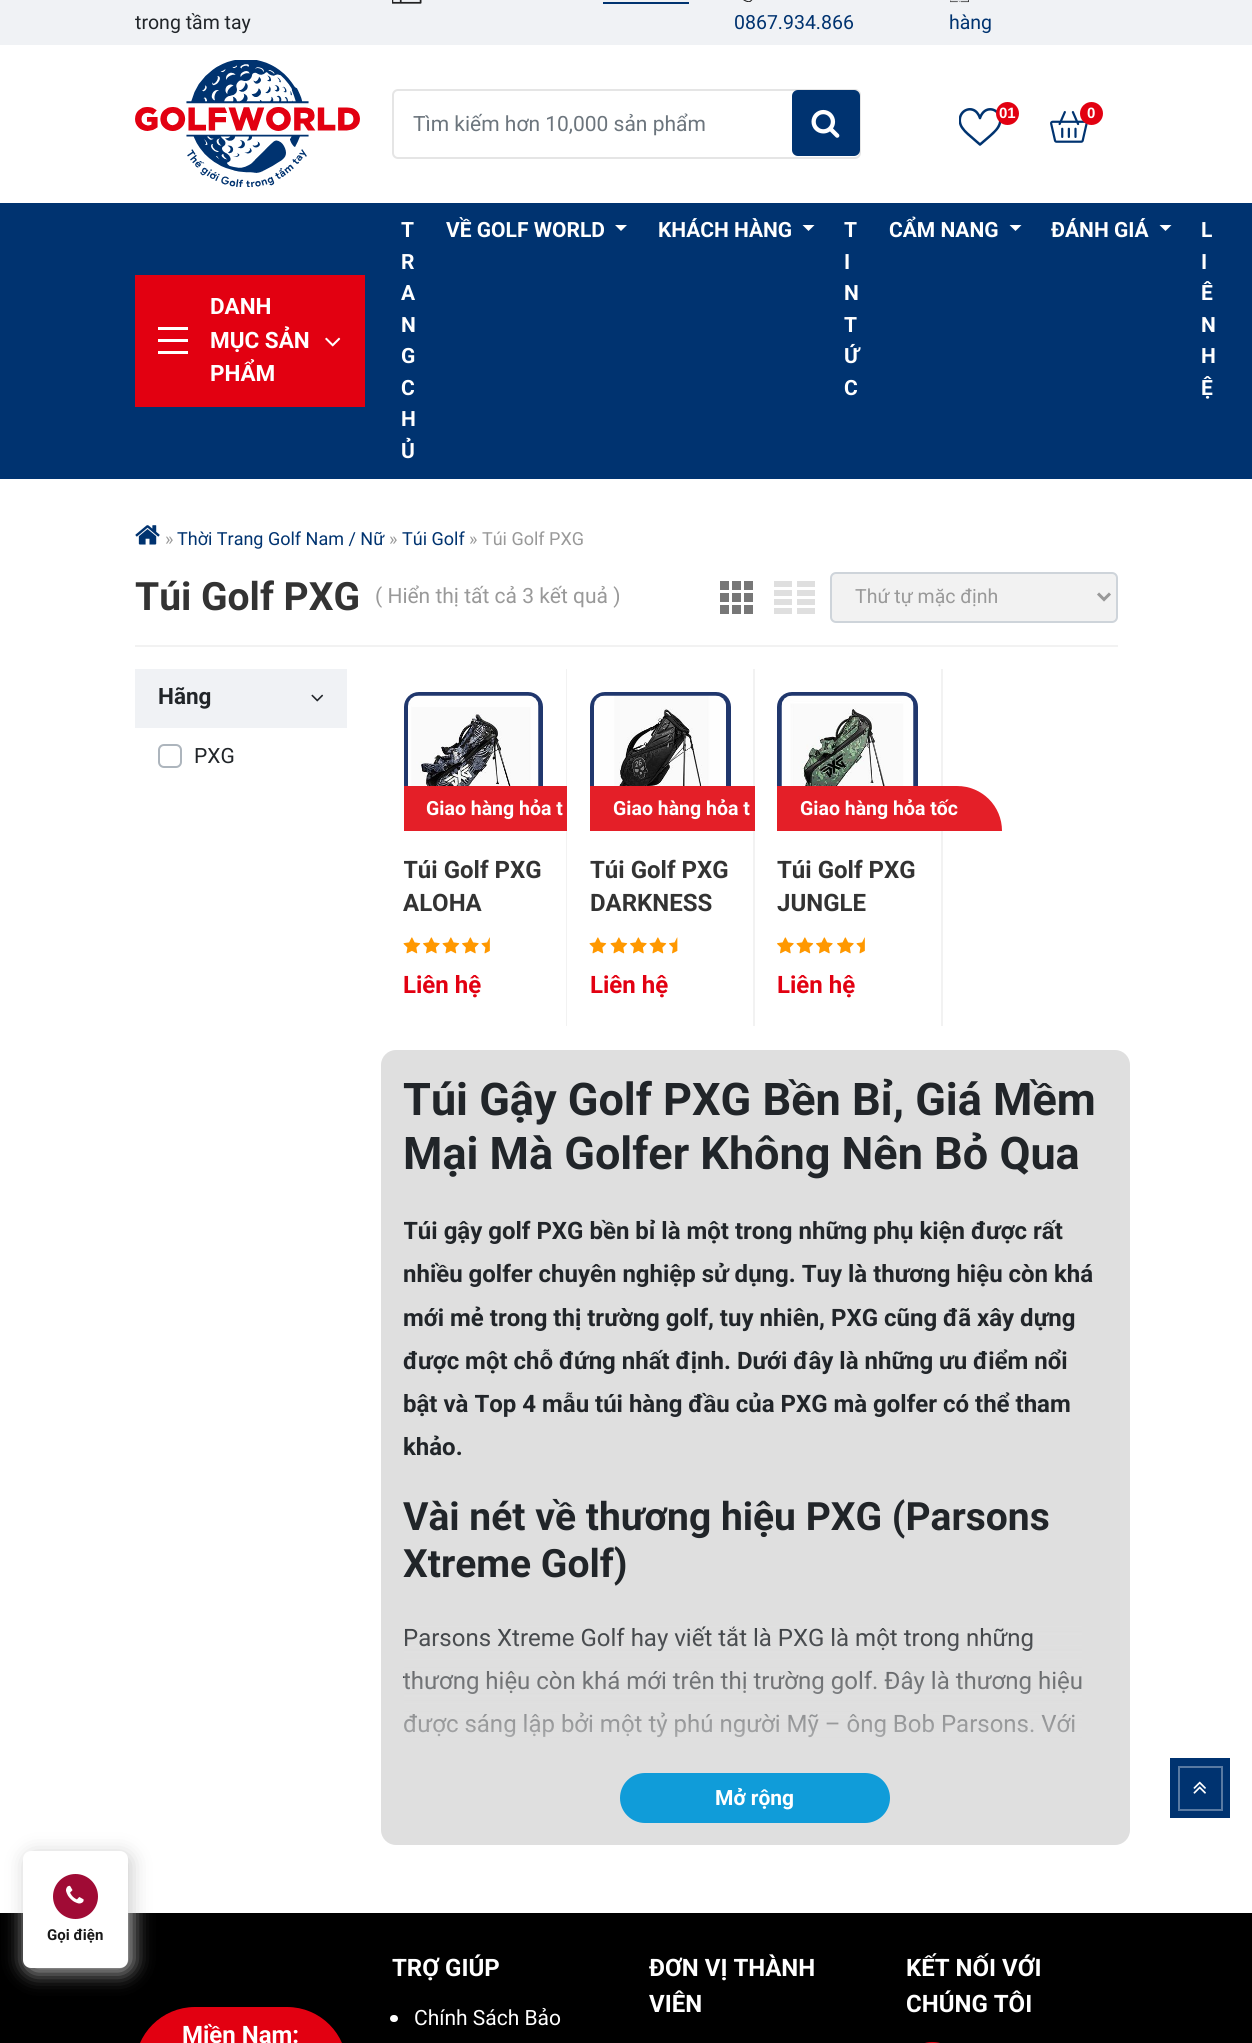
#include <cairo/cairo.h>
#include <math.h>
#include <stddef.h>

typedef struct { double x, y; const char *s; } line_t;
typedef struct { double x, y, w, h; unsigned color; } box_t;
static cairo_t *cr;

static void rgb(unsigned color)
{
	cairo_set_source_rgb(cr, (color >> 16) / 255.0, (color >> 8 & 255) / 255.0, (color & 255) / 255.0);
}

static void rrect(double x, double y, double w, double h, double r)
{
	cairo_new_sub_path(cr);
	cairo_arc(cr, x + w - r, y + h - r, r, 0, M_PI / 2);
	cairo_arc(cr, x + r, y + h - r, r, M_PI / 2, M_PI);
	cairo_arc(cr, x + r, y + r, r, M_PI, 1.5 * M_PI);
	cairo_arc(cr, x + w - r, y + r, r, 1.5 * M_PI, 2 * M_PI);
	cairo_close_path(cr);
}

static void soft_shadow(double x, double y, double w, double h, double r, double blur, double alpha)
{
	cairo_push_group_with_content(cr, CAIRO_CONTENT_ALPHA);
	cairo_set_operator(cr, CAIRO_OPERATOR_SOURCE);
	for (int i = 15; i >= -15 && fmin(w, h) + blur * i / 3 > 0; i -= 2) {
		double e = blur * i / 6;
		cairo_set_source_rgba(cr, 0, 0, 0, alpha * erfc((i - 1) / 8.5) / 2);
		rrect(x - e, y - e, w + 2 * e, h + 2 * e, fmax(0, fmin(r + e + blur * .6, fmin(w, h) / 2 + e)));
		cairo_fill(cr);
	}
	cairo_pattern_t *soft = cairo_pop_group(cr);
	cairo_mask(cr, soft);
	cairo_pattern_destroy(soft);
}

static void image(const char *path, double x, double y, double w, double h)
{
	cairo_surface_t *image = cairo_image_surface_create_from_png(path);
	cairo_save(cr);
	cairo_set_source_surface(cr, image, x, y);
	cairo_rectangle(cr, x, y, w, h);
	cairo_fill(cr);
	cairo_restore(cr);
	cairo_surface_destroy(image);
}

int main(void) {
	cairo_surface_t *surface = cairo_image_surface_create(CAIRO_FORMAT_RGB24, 1252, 2043);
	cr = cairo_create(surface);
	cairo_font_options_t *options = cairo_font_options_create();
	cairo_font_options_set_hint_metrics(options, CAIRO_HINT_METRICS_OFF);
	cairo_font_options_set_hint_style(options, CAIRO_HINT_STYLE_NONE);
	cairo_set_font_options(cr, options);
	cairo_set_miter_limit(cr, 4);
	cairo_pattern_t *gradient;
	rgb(0xffffff);
	cairo_paint(cr);
	rgb(0xf0f2f5);
	cairo_rectangle(cr, 0, 0, 1252, 45);
	cairo_fill(cr);
	image("img/1.png", 392, 0, 30, 4);
	rgb(0x003370);
	cairo_rectangle(cr, 603, 2, 86, 2);
	cairo_fill(cr);
	image("img/2.png", 743, 0, 10, 2);
	image("img/3.png", 950, 0, 19, 3);
	image("img/4.png", 135, 60, 225, 127);
	rrect(393, 90, 467, 68, 5);
	rgb(0xe5e5e5);
	cairo_stroke(cr);
	rgb(0x003370);
	rrect(792, 90, 68, 66, 6);
	cairo_fill(cr);
	image("img/5.png", 811, 109, 29, 29);
	image("img/6.png", 959, 108, 43, 38);
	rgb(0xe20011);
	cairo_arc(cr, 1007.5, 113.5, 11.5, 0, 2 * M_PI);
	cairo_fill(cr);
	image("img/7.png", 1050, 111, 38, 32);
	cairo_arc(cr, 1091.5, 113.5, 11.5, 0, 2 * M_PI);
	cairo_fill(cr);
	{
		static const box_t items[] = {
			{0, 203, 1252, 276, 0x003370},
			{135, 275, 230, 132, 0xe20011},
			{158, 339, 30, 3, 0xffffff},
			{158, 327, 30, 3, 0xffffff},
			{158, 351, 30, 3, 0xffffff},
		};
		for (size_t i = 0; i < sizeof items / sizeof *items; i++) {
			rgb(items[i].color);
			cairo_rectangle(cr, items[i].x, items[i].y, items[i].w, items[i].h);
			cairo_fill(cr);
		}
	}
	image("img/8.png", 325, 337, 16, 10);
	cairo_new_path(cr);
	cairo_move_to(cr, 615, 225);
	cairo_line_to(cr, 627, 225);
	cairo_line_to(cr, 621, 231);
	cairo_close_path(cr);
	cairo_fill(cr);
	cairo_new_path(cr);
	cairo_move_to(cr, 802.5, 225);
	cairo_line_to(cr, 814.5, 225);
	cairo_line_to(cr, 808.5, 231);
	cairo_close_path(cr);
	cairo_fill(cr);
	cairo_new_path(cr);
	cairo_move_to(cr, 1009.5, 225);
	cairo_line_to(cr, 1021.5, 225);
	cairo_line_to(cr, 1015.5, 231);
	cairo_close_path(cr);
	cairo_fill(cr);
	cairo_new_path(cr);
	cairo_move_to(cr, 1159.5, 225);
	cairo_line_to(cr, 1171.5, 225);
	cairo_line_to(cr, 1165.5, 231);
	cairo_close_path(cr);
	cairo_fill(cr);
	image("img/9.png", 135, 525, 25, 20);
	rgb(0xf2f2f2);
	cairo_rectangle(cr, 135, 645, 983, 2);
	cairo_fill(cr);
	image("img/10.png", 720, 581, 33, 33);
	{
		static const box_t items[] = {
			{774, 581, 18, 6, 0xdfdfdf},
			{797, 581, 18, 6, 0xdfdfdf},
			{774, 590, 18, 6, 0xdfdfdf},
			{797, 590, 18, 6, 0xdfdfdf},
			{774, 599, 18, 6, 0xdfdfdf},
			{797, 599, 18, 6, 0xdfdfdf},
			{774, 608, 18, 6, 0xdfdfdf},
			{797, 608, 18, 6, 0xdfdfdf},
		};
		for (size_t i = 0; i < sizeof items / sizeof *items; i++) {
			rgb(items[i].color);
			cairo_rectangle(cr, items[i].x, items[i].y, items[i].w, items[i].h);
			cairo_fill(cr);
		}
	}
	rgb(0xf2f2f2);
	rrect(831, 573, 286, 49, 5);
	cairo_fill_preserve(cr);
	rgb(0xced4da);
	cairo_stroke(cr);
	cairo_new_path(cr);
	cairo_move_to(cr, 1098, 593.5);
	cairo_line_to(cr, 1104, 599.5);
	cairo_line_to(cr, 1110, 593.5);
	rgb(0x999999);
	cairo_set_line_width(cr, 3);
	cairo_stroke(cr);
	rgb(0xf0f2f5);
	cairo_rectangle(cr, 135, 669, 212, 59);
	cairo_fill(cr);
	image("img/11.png", 311, 694, 13, 8);
	rrect(159, 745, 22, 22, 5);
	rgb(0xadb5bd);
	cairo_set_line_width(cr, 2);
	cairo_stroke(cr);
	rgb(0xf2f2f2);
	cairo_rectangle(cr, 566, 669, 1, 357);
	cairo_fill(cr);
	cairo_new_path(cr);
	cairo_move_to(cr, 419, 694.5);
	cairo_line_to(cr, 528, 694.5);
	cairo_curve_to(cr, 535, 694.5, 540.5, 700, 540.5, 707);
	cairo_line_to(cr, 540.5, 828.5);
	cairo_line_to(cr, 406.5, 828.5);
	cairo_line_to(cr, 406.5, 707);
	cairo_curve_to(cr, 406.5, 700, 412, 694.5, 419, 694.5);
	cairo_close_path(cr);
	rgb(0x20376d);
	cairo_set_line_width(cr, 5);
	cairo_stroke(cr);
	image("img/12.png", 408, 695, 131, 91);
	rgb(0xe41f28);
	cairo_rectangle(cr, 404, 786, 163, 45);
	cairo_fill(cr);
	image("img/13.png", 403, 937, 18, 17);
	image("img/14.png", 423, 937, 17, 17);
	image("img/13.png", 442, 937, 18, 17);
	image("img/14.png", 462, 937, 17, 17);
	image("img/15.png", 481, 937, 9, 17);
	rgb(0xf2f2f2);
	cairo_rectangle(cr, 753, 669, 2, 357);
	cairo_fill(cr);
	cairo_new_path(cr);
	cairo_move_to(cr, 605, 694.5);
	cairo_line_to(cr, 716, 694.5);
	cairo_curve_to(cr, 723, 694.5, 728.5, 700, 728.5, 707);
	cairo_line_to(cr, 728.5, 828.5);
	cairo_line_to(cr, 592.5, 828.5);
	cairo_line_to(cr, 592.5, 707);
	cairo_curve_to(cr, 592.5, 700, 598, 694.5, 605, 694.5);
	cairo_close_path(cr);
	rgb(0x20376d);
	cairo_stroke(cr);
	image("img/16.png", 594, 695, 132, 91);
	rgb(0xe41f28);
	cairo_rectangle(cr, 590, 786, 165, 45);
	cairo_fill(cr);
	image("img/13.png", 589, 937, 18, 17);
	image("img/13.png", 610, 937, 18, 17);
	image("img/14.png", 630, 937, 17, 17);
	image("img/13.png", 649, 937, 18, 17);
	image("img/17.png", 669, 937, 9, 17);
	rgb(0xf2f2f2);
	cairo_rectangle(cr, 941, 669, 2, 357);
	cairo_fill(cr);
	cairo_new_path(cr);
	cairo_move_to(cr, 792, 694.5);
	cairo_line_to(cr, 903, 694.5);
	cairo_curve_to(cr, 910, 694.5, 915.5, 700, 915.5, 707);
	cairo_line_to(cr, 915.5, 828.5);
	cairo_line_to(cr, 779.5, 828.5);
	cairo_line_to(cr, 779.5, 707);
	cairo_curve_to(cr, 779.5, 700, 785, 694.5, 792, 694.5);
	cairo_close_path(cr);
	rgb(0x20376d);
	cairo_stroke(cr);
	image("img/18.png", 781, 695, 133, 91);
	rgb(0xe41f28);
	cairo_new_path(cr);
	cairo_move_to(cr, 777, 786);
	cairo_line_to(cr, 957, 786);
	cairo_curve_to(cr, 982, 786, 1002, 806, 1002, 831);
	cairo_line_to(cr, 777, 831);
	cairo_close_path(cr);
	cairo_fill(cr);
	image("img/14.png", 777, 937, 17, 17);
	image("img/13.png", 796, 937, 18, 17);
	image("img/14.png", 816, 937, 17, 17);
	image("img/14.png", 837, 937, 17, 17);
	image("img/15.png", 856, 937, 9, 17);
	rgb(0xdfdfdf);
	rrect(381, 1050, 749, 795, 15);
	cairo_fill(cr);
	rgb(0x109cd9);
	rrect(621, 1774, 268, 48, 24);
	cairo_fill_preserve(cr);
	cairo_set_line_width(cr, 2);
	cairo_stroke(cr);
	rgb(0x003370);
	cairo_rectangle(cr, 1170, 1758, 60, 60);
	cairo_fill(cr);
	image("img/19.png", 1193, 1781, 13, 13);
	cairo_rectangle(cr, 1179, 1767, 43, 43);
	rgb(0x597aa2);
	cairo_stroke(cr);
	rgb(0x000000);
	cairo_rectangle(cr, 0, 1913, 1252, 130);
	cairo_fill(cr);
	rgb(0xcacaca);
	soft_shadow(26, 1854, 105, 117, 8, 10, 1);
	rgb(0xffffff);
	rrect(23, 1851, 105, 117, 8);
	cairo_fill(cr);
	rgb(0xa00b35);
	cairo_arc(cr, 75.5, 1896.5, 22.5, 0, 2 * M_PI);
	cairo_fill(cr);
	image("img/20.png", 66, 1885, 18, 19);
	rgb(0xffffff);
	rrect(390, 2015, 8, 7, 3.5);
	cairo_fill(cr);
	rgb(0xe20011);
	rrect(906, 2042, 53, 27, 26);
	cairo_fill(cr);
	rrect(135, 2007, 212, 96, 60);
	cairo_fill(cr);
	cairo_select_font_face(cr, "Roboto", CAIRO_FONT_SLANT_NORMAL, CAIRO_FONT_WEIGHT_NORMAL);
	cairo_set_font_size(cr, 19.5);
	rgb(0x212529);
	cairo_move_to(cr, 135, 29);
	cairo_show_text(cr, "trong tầm tay");
	rgb(0x003370);
	cairo_move_to(cr, 734, 29);
	cairo_show_text(cr, "0867.934.866");
	cairo_move_to(cr, 949, 29);
	cairo_show_text(cr, "hàng");
	cairo_set_font_size(cr, 21);
	rgb(0x6c757d);
	cairo_move_to(cr, 413, 131);
	cairo_show_text(cr, "Tìm kiếm hơn 10,000 sản phẩm");
	cairo_select_font_face(cr, "Liberation Sans", CAIRO_FONT_SLANT_NORMAL, CAIRO_FONT_WEIGHT_BOLD);
	cairo_set_font_size(cr, 15);
	rgb(0xffffff);
	cairo_move_to(cr, 999, 118);
	cairo_show_text(cr, "01");
	cairo_move_to(cr, 1087, 118);
	cairo_show_text(cr, "0");
	cairo_select_font_face(cr, "Roboto", CAIRO_FONT_SLANT_NORMAL, CAIRO_FONT_WEIGHT_BOLD);
	cairo_set_font_size(cr, 22.5);
	{
		static const line_t items[] = {
			{210, 314, "DANH"},
			{210, 348, "MỤC SẢN"},
			{210, 381, "PHẨM"},
		};
		for (size_t i = 0; i < sizeof items / sizeof *items; i++) {
			cairo_move_to(cr, items[i].x, items[i].y);
			cairo_show_text(cr, items[i].s);
		}
	}
	cairo_set_font_size(cr, 21);
	{
		static const line_t items[] = {
			{401, 237, "T"},
			{401, 269, "R"},
			{401, 300, "A"},
			{401, 332, "N"},
			{401, 363, "G"},
			{401, 395, "C"},
			{401, 426, "H"},
			{401, 458, "Ủ"},
			{446, 237, "VỀ GOLF WORLD"},
			{658, 237, "KHÁCH HÀNG"},
			{844, 237, "T"},
			{844, 269, "I"},
			{844, 300, "N"},
			{844, 332, "T"},
			{844, 363, "Ứ"},
			{844, 395, "C"},
			{889, 237, "CẨM NANG"},
			{1051, 237, "ĐÁNH GIÁ"},
			{1201, 237, "L"},
			{1201, 269, "I"},
			{1201, 300, "Ê"},
			{1201, 332, "N"},
			{1201, 363, "H"},
			{1201, 395, "Ệ"},
		};
		for (size_t i = 0; i < sizeof items / sizeof *items; i++) {
			cairo_move_to(cr, items[i].x, items[i].y);
			cairo_show_text(cr, items[i].s);
		}
	}
	cairo_select_font_face(cr, "Roboto", CAIRO_FONT_SLANT_NORMAL, CAIRO_FONT_WEIGHT_NORMAL);
	cairo_set_font_size(cr, 18);
	rgb(0x999999);
	cairo_move_to(cr, 165, 545);
	cairo_show_text(cr, "»");
	rgb(0x003370);
	cairo_move_to(cr, 177, 545);
	cairo_show_text(cr, "Thời Trang Golf Nam / Nữ");
	rgb(0x999999);
	cairo_move_to(cr, 389, 545);
	cairo_show_text(cr, "»");
	rgb(0x003370);
	cairo_move_to(cr, 402, 545);
	cairo_show_text(cr, "Túi Golf");
	rgb(0x999999);
	cairo_move_to(cr, 469, 545);
	cairo_show_text(cr, "» Túi Golf PXG");
	cairo_select_font_face(cr, "Roboto", CAIRO_FONT_SLANT_NORMAL, CAIRO_FONT_WEIGHT_BOLD);
	cairo_set_font_size(cr, 39);
	rgb(0x333333);
	cairo_move_to(cr, 135, 610);
	cairo_show_text(cr, "Túi Golf PXG");
	cairo_select_font_face(cr, "Roboto", CAIRO_FONT_SLANT_NORMAL, CAIRO_FONT_WEIGHT_NORMAL);
	cairo_set_font_size(cr, 21);
	rgb(0x999999);
	cairo_move_to(cr, 375, 603);
	cairo_show_text(cr, "( Hiển thị tất cả 3 kết quả )");
	cairo_set_font_size(cr, 19.5);
	cairo_move_to(cr, 855, 603);
	cairo_show_text(cr, "Thứ tự mặc định");
	cairo_select_font_face(cr, "Roboto", CAIRO_FONT_SLANT_NORMAL, CAIRO_FONT_WEIGHT_BOLD);
	cairo_set_font_size(cr, 22.5);
	rgb(0x212529);
	cairo_move_to(cr, 158, 704);
	cairo_show_text(cr, "Hãng");
	cairo_select_font_face(cr, "Roboto", CAIRO_FONT_SLANT_NORMAL, CAIRO_FONT_WEIGHT_NORMAL);
	cairo_set_font_size(cr, 21);
	cairo_move_to(cr, 194, 763);
	cairo_show_text(cr, "PXG");
	cairo_select_font_face(cr, "Roboto", CAIRO_FONT_SLANT_NORMAL, CAIRO_FONT_WEIGHT_BOLD);
	cairo_set_font_size(cr, 19.5);
	rgb(0xffffff);
	cairo_move_to(cr, 426, 815);
	cairo_show_text(cr, "Giao hàng hỏa t");
	cairo_save(cr);
	cairo_rectangle(cr, 404, 854, 139, 67);
	cairo_clip(cr);
	cairo_set_font_size(cr, 24);
	rgb(0x333333);
	cairo_move_to(cr, 403, 878);
	cairo_show_text(cr, "Túi Golf PXG");
	cairo_restore(cr);
	cairo_set_font_size(cr, 24);
	rgb(0x333333);
	cairo_move_to(cr, 403, 911);
	cairo_show_text(cr, "ALOHA");
	rgb(0xe20011);
	cairo_move_to(cr, 403, 993);
	cairo_show_text(cr, "Liên hệ");
	cairo_set_font_size(cr, 19.5);
	rgb(0xffffff);
	cairo_move_to(cr, 613, 815);
	cairo_show_text(cr, "Giao hàng hỏa t");
	cairo_set_font_size(cr, 24);
	rgb(0x333333);
	cairo_move_to(cr, 590, 878);
	cairo_show_text(cr, "Túi Golf PXG");
	cairo_move_to(cr, 590, 911);
	cairo_show_text(cr, "DARKNESS");
	rgb(0xe20011);
	cairo_move_to(cr, 590, 993);
	cairo_show_text(cr, "Liên hệ");
	cairo_set_font_size(cr, 19.5);
	rgb(0xffffff);
	cairo_move_to(cr, 800, 815);
	cairo_show_text(cr, "Giao hàng hỏa tốc");
	cairo_set_font_size(cr, 24);
	rgb(0x333333);
	cairo_move_to(cr, 777, 878);
	cairo_show_text(cr, "Túi Golf PXG");
	cairo_move_to(cr, 777, 911);
	cairo_show_text(cr, "JUNGLE");
	rgb(0xe20011);
	cairo_move_to(cr, 777, 993);
	cairo_show_text(cr, "Liên hệ");
	cairo_set_font_size(cr, 45);
	rgb(0x212529);
	cairo_move_to(cr, 403, 1115);
	cairo_show_text(cr, "Túi Gậy Golf PXG Bền Bỉ, Giá Mềm");
	cairo_move_to(cr, 403, 1169);
	cairo_show_text(cr, "Mại Mà Golfer Không Nên Bỏ Qua");
	cairo_save(cr);
	cairo_rectangle(cr, 404, 1073, 703, 750);
	cairo_clip(cr);
	cairo_set_font_size(cr, 24);
	cairo_move_to(cr, 403, 1239);
	cairo_show_text(cr, "Túi gậy golf PXG bền bỉ là một trong những phụ kiện được rất");
	cairo_restore(cr);
	cairo_set_font_size(cr, 24);
	{
		static const line_t items[] = {
			{403, 1282, "nhiều golfer chuyên nghiệp sử dụng. Tuy là thương hiệu còn khá"},
			{403, 1326, "mới mẻ trong thị trường golf, tuy nhiên, PXG cũng đã xây dựng"},
			{403, 1369, "được một chỗ đứng nhất định. Dưới đây là những ưu điểm nổi"},
			{403, 1412, "bật và Top 4 mẫu túi hàng đầu của PXG mà golfer có thể tham"},
			{403, 1455, "khảo."},
		};
		for (size_t i = 0; i < sizeof items / sizeof *items; i++) {
			cairo_move_to(cr, items[i].x, items[i].y);
			cairo_show_text(cr, items[i].s);
		}
	}
	cairo_set_font_size(cr, 39);
	cairo_move_to(cr, 403, 1530);
	cairo_show_text(cr, "Vài nét về thương hiệu PXG (Parsons");
	cairo_move_to(cr, 403, 1577);
	cairo_show_text(cr, "Xtreme Golf)");
	cairo_select_font_face(cr, "Roboto", CAIRO_FONT_SLANT_NORMAL, CAIRO_FONT_WEIGHT_NORMAL);
	cairo_set_font_size(cr, 24);
	{
		static const line_t items[] = {
			{403, 1646, "Parsons Xtreme Golf hay viết tắt là PXG là một trong những"},
			{403, 1689, "thương hiệu còn khá mới trên thị trường golf. Đây là thương hiệu"},
			{403, 1732, "được sáng lập bởi một tỷ phú người Mỹ – ông Bob Parsons. Với"},
		};
		for (size_t i = 0; i < sizeof items / sizeof *items; i++) {
			cairo_move_to(cr, items[i].x, items[i].y);
			cairo_show_text(cr, items[i].s);
		}
	}
	gradient = cairo_pattern_create_linear(755, 1598, 755, 1823);
	cairo_pattern_add_color_stop_rgba(gradient, 0, 0.875, 0.875, 0.875, 0);
	cairo_pattern_add_color_stop_rgba(gradient, 0.89, 0.875, 0.875, 0.875, 1);
	cairo_set_source(cr, gradient);
	cairo_pattern_destroy(gradient);
	cairo_rectangle(cr, 404, 1626, 678, 112);
	cairo_fill(cr);
	cairo_select_font_face(cr, "Roboto", CAIRO_FONT_SLANT_NORMAL, CAIRO_FONT_WEIGHT_BOLD);
	cairo_set_font_size(cr, 21);
	rgb(0xffffff);
	cairo_move_to(cr, 715, 1805);
	cairo_show_text(cr, "Mở rộng");
	cairo_set_font_size(cr, 15);
	rgb(0x191919);
	cairo_move_to(cr, 47, 1940);
	cairo_show_text(cr, "Gọi điện");
	cairo_set_font_size(cr, 24);
	rgb(0xffffff);
	cairo_move_to(cr, 392, 1976);
	cairo_show_text(cr, "TRỢ GIÚP");
	cairo_select_font_face(cr, "Roboto", CAIRO_FONT_SLANT_NORMAL, CAIRO_FONT_WEIGHT_NORMAL);
	cairo_set_font_size(cr, 21);
	cairo_move_to(cr, 414, 2025);
	cairo_show_text(cr, "Chính Sách Bảo");
	cairo_select_font_face(cr, "Roboto", CAIRO_FONT_SLANT_NORMAL, CAIRO_FONT_WEIGHT_BOLD);
	cairo_set_font_size(cr, 24);
	{
		static const line_t items[] = {
			{649, 1976, "ĐƠN VỊ THÀNH"},
			{649, 2012, "VIÊN"},
			{906, 1976, "KẾT NỐI VỚI"},
			{906, 2012, "CHÚNG TÔI"},
			{182, 2043, "Miền Nam:"},
		};
		for (size_t i = 0; i < sizeof items / sizeof *items; i++) {
			cairo_move_to(cr, items[i].x, items[i].y);
			cairo_show_text(cr, items[i].s);
		}
	}
	cairo_surface_write_to_png(surface, "page.png");
	cairo_font_options_destroy(options);
	cairo_destroy(cr);
	cairo_surface_destroy(surface);
	return 0;
}
